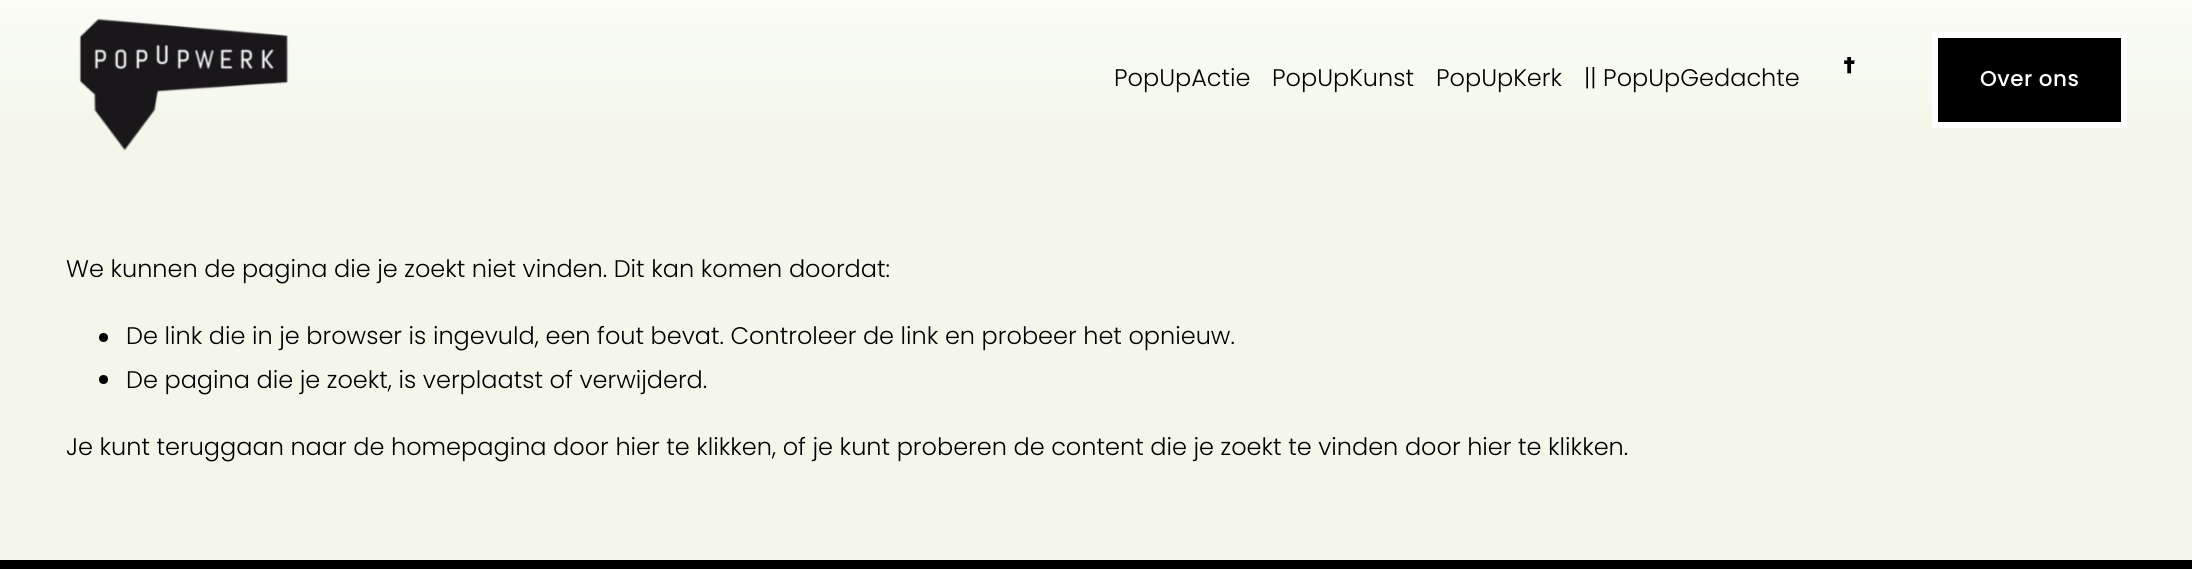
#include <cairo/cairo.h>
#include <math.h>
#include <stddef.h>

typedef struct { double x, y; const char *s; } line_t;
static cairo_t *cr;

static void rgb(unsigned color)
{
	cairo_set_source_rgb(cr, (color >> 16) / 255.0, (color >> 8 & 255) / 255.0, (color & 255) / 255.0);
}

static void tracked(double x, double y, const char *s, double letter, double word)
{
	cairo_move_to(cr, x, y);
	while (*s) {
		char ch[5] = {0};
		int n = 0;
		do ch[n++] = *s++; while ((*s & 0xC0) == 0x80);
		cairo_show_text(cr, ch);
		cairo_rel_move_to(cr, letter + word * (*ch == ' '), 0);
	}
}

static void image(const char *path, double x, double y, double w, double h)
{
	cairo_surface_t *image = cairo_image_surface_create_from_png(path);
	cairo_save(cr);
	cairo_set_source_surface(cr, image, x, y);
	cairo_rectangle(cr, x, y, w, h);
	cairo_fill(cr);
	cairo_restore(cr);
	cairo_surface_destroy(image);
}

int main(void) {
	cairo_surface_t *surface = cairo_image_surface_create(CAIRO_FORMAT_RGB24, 2192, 569);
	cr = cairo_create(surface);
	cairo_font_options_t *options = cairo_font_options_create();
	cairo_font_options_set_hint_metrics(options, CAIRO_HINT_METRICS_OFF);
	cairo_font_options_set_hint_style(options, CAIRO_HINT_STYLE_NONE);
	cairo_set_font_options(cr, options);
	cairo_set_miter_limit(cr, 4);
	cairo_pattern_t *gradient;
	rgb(0xf4f6ea);
	cairo_paint(cr);
	gradient = cairo_pattern_create_linear(1097, 0, 1097, 159);
	cairo_pattern_add_color_stop_rgba(gradient, 0, 0.98, 0.988, 0.961, 1);
	cairo_pattern_add_color_stop_rgba(gradient, 1, 0.953, 0.969, 0.914, 1);
	cairo_set_source(cr, gradient);
	cairo_pattern_destroy(gradient);
	cairo_rectangle(cr, 0, 0, 2192, 113);
	cairo_fill(cr);
	image("img/1.png", 79, 18, 210, 133);
	image("img/2.png", 1844, 57, 11, 17);
	rgb(0x000000);
	cairo_rectangle(cr, 1935, 35, 189, 90);
	cairo_fill_preserve(cr);
	rgb(0xffffff);
	cairo_set_line_width(cr, 6);
	cairo_stroke(cr);
	rgb(0x000000);
	cairo_arc(cr, 103.5, 337.5, 4.5, 0, 2 * M_PI);
	cairo_fill(cr);
	cairo_arc(cr, 103.5, 379.5, 4.5, 0, 2 * M_PI);
	cairo_fill(cr);
	cairo_rectangle(cr, 0, 560, 2192, 9);
	cairo_fill(cr);
	cairo_select_font_face(cr, "Poppins Light", CAIRO_FONT_SLANT_NORMAL, CAIRO_FONT_WEIGHT_NORMAL);
	cairo_set_font_size(cr, 24);
	{
		static const line_t items[] = {
			{1114, 86, "PopUpActie"},
			{1272, 86, "PopUpKunst"},
			{1436, 86, "PopUpKerk"},
			{1584, 86, "|| PopUpGedachte"},
		};
		for (size_t i = 0; i < sizeof items / sizeof *items; i++) {
			cairo_move_to(cr, items[i].x, items[i].y);
			cairo_show_text(cr, items[i].s);
		}
	}
	cairo_select_font_face(cr, "Poppins Medium", CAIRO_FONT_SLANT_NORMAL, CAIRO_FONT_WEIGHT_NORMAL);
	cairo_set_font_size(cr, 21.5);
	rgb(0xffffff);
	tracked(1980, 86, "Over ons", 0.5, 0);
	cairo_select_font_face(cr, "Poppins Light", CAIRO_FONT_SLANT_NORMAL, CAIRO_FONT_WEIGHT_NORMAL);
	cairo_set_font_size(cr, 24);
	rgb(0x000000);
	{
		static const line_t items[] = {
			{66, 277, "We kunnen de pagina die je zoekt niet vinden. Dit kan komen doordat:"},
			{126, 344, "De link die in je browser is ingevuld, een fout bevat. Controleer de link en probeer het opnieuw."},
			{126, 388, "De pagina die je zoekt, is verplaatst of verwijderd."},
			{66, 455, "Je kunt teruggaan naar de homepagina door hier te klikken, of je kunt proberen de content die je zoekt te vinden door hier te klikken."},
		};
		for (size_t i = 0; i < sizeof items / sizeof *items; i++) {
			cairo_move_to(cr, items[i].x, items[i].y);
			cairo_show_text(cr, items[i].s);
		}
	}
	cairo_surface_write_to_png(surface, "page.png");
	cairo_font_options_destroy(options);
	cairo_destroy(cr);
	cairo_surface_destroy(surface);
	return 0;
}
